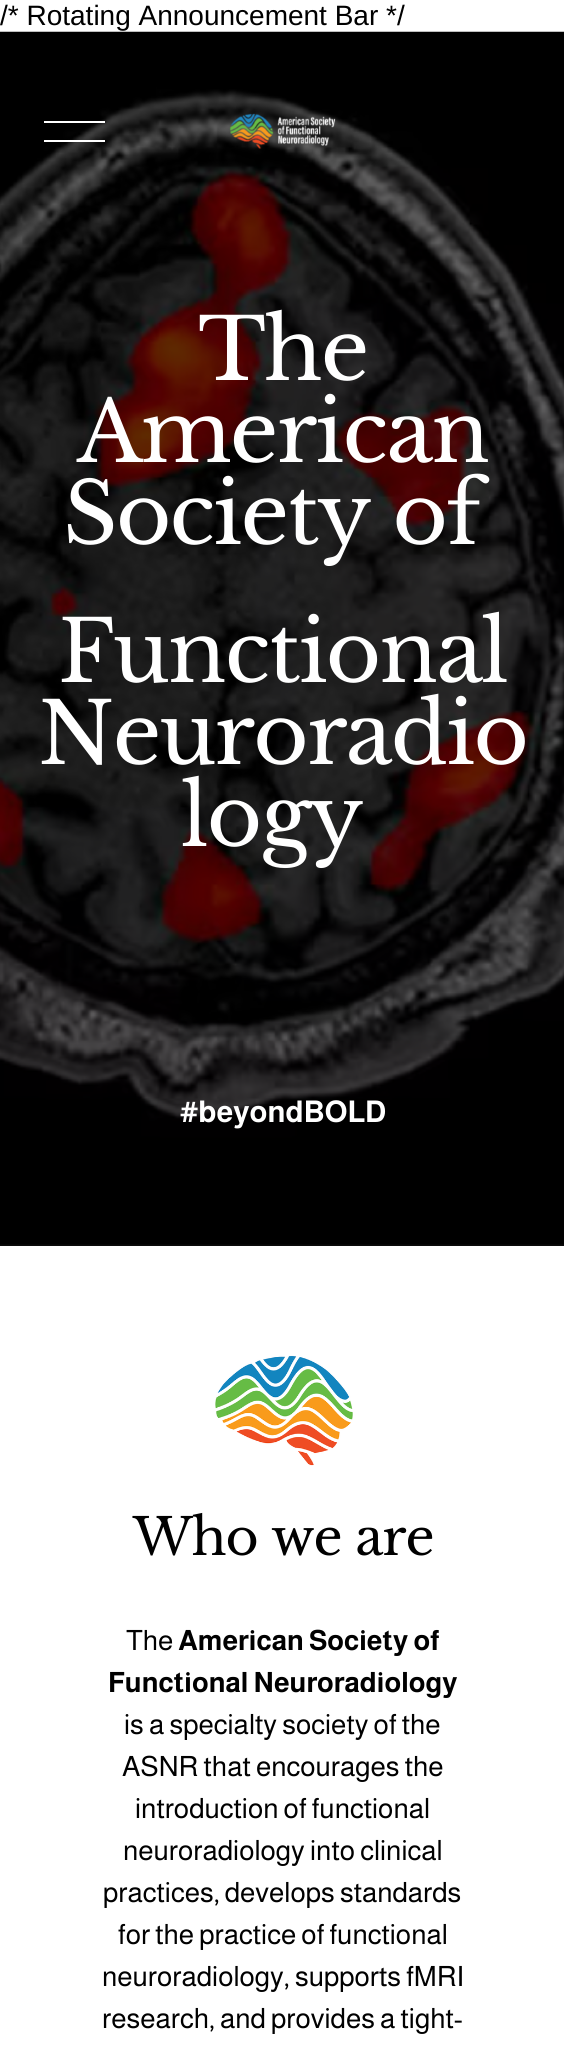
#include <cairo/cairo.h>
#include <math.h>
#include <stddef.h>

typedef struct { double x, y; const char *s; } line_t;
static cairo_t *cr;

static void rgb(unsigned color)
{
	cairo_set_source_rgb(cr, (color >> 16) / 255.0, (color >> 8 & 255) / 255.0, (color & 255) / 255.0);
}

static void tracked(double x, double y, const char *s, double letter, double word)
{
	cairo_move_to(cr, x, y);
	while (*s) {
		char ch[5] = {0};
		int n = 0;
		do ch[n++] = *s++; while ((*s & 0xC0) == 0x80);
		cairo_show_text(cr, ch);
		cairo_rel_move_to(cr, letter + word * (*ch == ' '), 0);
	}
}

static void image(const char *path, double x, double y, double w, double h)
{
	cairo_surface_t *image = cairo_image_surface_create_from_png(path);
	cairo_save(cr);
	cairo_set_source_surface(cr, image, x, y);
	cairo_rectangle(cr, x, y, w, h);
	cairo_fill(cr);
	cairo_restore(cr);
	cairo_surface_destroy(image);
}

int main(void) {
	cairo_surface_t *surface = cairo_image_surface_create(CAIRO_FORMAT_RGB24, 564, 2047);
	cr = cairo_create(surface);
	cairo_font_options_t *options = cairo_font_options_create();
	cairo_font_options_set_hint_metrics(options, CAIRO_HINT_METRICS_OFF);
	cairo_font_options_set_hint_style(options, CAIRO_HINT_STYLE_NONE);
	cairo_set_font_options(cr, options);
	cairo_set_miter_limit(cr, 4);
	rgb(0xffffff);
	cairo_paint(cr);
	image("img/2.png", 0, 31, 564, 1215);
	rgb(0xffffff);
	cairo_rectangle(cr, 44, 121, 61, 2);
	cairo_fill(cr);
	cairo_rectangle(cr, 44, 140, 61, 2);
	cairo_fill(cr);
	image("img/1.png", 229, 113, 107, 36);
	image("img/3.png", 215, 1355, 138, 111);
	cairo_select_font_face(cr, "Liberation Sans", CAIRO_FONT_SLANT_NORMAL, CAIRO_FONT_WEIGHT_NORMAL);
	cairo_set_font_size(cr, 28);
	rgb(0x000000);
	cairo_move_to(cr, 0, 25);
	cairo_show_text(cr, "/* Rotating Announcement Bar */");
	cairo_select_font_face(cr, "Libre Baskerville", CAIRO_FONT_SLANT_NORMAL, CAIRO_FONT_WEIGHT_NORMAL);
	cairo_set_font_size(cr, 84.75);
	rgb(0xffffff);
	{
		static const line_t items[] = {
			{198, 380, "The"},
			{77, 462, "American"},
			{63, 544, "Society of"},
			{58, 682, "Functional"},
			{38, 764, "Neuroradio"},
			{181, 846, "logy"},
		};
		for (size_t i = 0; i < sizeof items / sizeof *items; i++) {
			tracked(items[i].x, items[i].y, items[i].s, -1.75, 0);
		}
	}
	cairo_select_font_face(cr, "Almarai", CAIRO_FONT_SLANT_NORMAL, CAIRO_FONT_WEIGHT_BOLD);
	cairo_set_font_size(cr, 30);
	cairo_move_to(cr, 180, 1122);
	cairo_show_text(cr, "#beyondBOLD");
	cairo_select_font_face(cr, "Libre Baskerville", CAIRO_FONT_SLANT_NORMAL, CAIRO_FONT_WEIGHT_NORMAL);
	cairo_set_font_size(cr, 50.75);
	rgb(0x000000);
	tracked(133, 1555, "Who we are", -1, 0);
	cairo_select_font_face(cr, "Almarai", CAIRO_FONT_SLANT_NORMAL, CAIRO_FONT_WEIGHT_NORMAL);
	cairo_set_font_size(cr, 28);
	cairo_move_to(cr, 126, 1650);
	cairo_show_text(cr, "The");
	cairo_select_font_face(cr, "Almarai", CAIRO_FONT_SLANT_NORMAL, CAIRO_FONT_WEIGHT_BOLD);
	cairo_move_to(cr, 178, 1650);
	cairo_show_text(cr, "American Society of");
	cairo_move_to(cr, 108, 1692);
	cairo_show_text(cr, "Functional Neuroradiology");
	cairo_select_font_face(cr, "Almarai", CAIRO_FONT_SLANT_NORMAL, CAIRO_FONT_WEIGHT_NORMAL);
	{
		static const line_t items[] = {
			{124, 1734, "is a specialty society of the"},
			{122, 1776, "ASNR that encourages the"},
			{135, 1818, "introduction of functional"},
			{123, 1860, "neuroradiology into clinical"},
			{103, 1902, "practices, develops standards"},
			{118, 1944, "for the practice of functional"},
			{102, 1986, "neuroradiology, supports fMRI"},
			{102, 2028, "research, and provides a tight-"},
		};
		for (size_t i = 0; i < sizeof items / sizeof *items; i++) {
			cairo_move_to(cr, items[i].x, items[i].y);
			cairo_show_text(cr, items[i].s);
		}
	}
	cairo_surface_write_to_png(surface, "page.png");
	cairo_font_options_destroy(options);
	cairo_destroy(cr);
	cairo_surface_destroy(surface);
	return 0;
}
